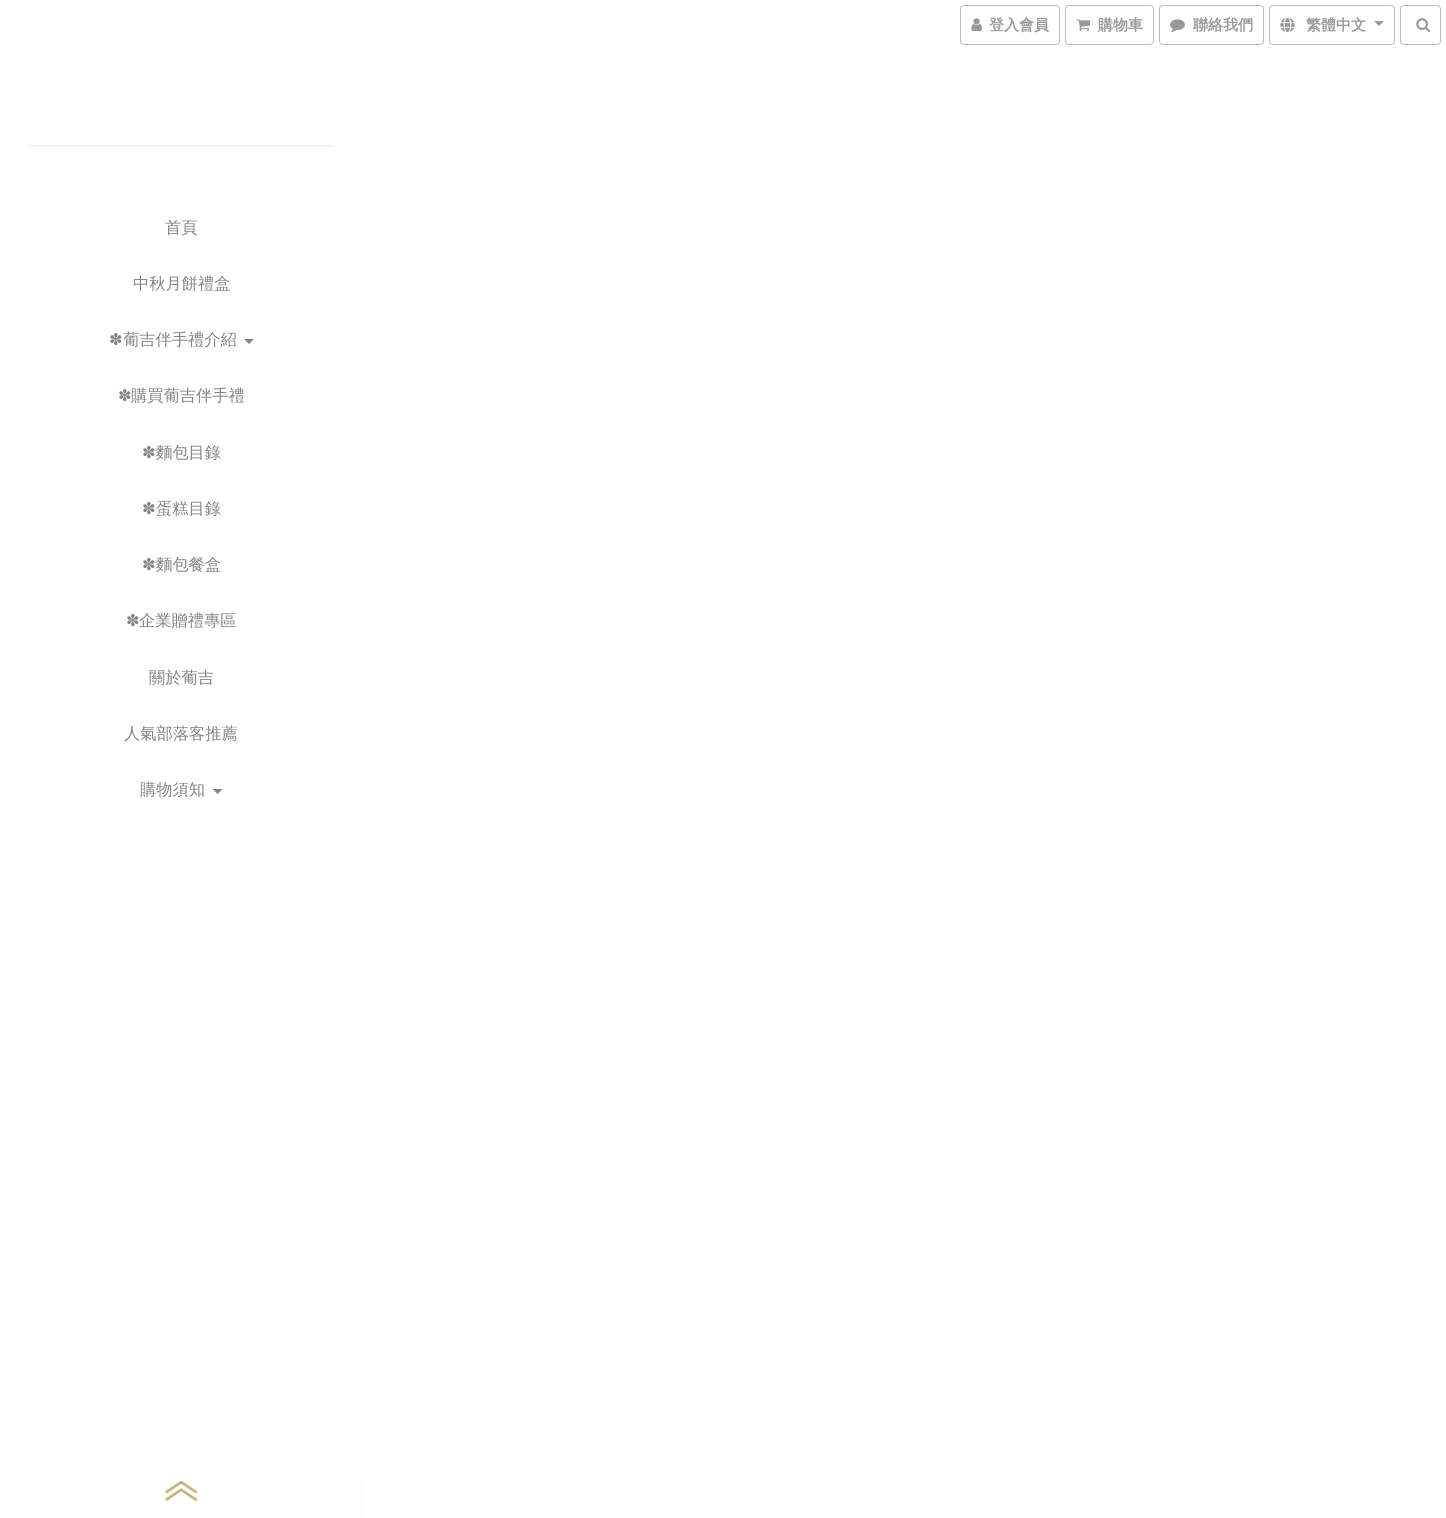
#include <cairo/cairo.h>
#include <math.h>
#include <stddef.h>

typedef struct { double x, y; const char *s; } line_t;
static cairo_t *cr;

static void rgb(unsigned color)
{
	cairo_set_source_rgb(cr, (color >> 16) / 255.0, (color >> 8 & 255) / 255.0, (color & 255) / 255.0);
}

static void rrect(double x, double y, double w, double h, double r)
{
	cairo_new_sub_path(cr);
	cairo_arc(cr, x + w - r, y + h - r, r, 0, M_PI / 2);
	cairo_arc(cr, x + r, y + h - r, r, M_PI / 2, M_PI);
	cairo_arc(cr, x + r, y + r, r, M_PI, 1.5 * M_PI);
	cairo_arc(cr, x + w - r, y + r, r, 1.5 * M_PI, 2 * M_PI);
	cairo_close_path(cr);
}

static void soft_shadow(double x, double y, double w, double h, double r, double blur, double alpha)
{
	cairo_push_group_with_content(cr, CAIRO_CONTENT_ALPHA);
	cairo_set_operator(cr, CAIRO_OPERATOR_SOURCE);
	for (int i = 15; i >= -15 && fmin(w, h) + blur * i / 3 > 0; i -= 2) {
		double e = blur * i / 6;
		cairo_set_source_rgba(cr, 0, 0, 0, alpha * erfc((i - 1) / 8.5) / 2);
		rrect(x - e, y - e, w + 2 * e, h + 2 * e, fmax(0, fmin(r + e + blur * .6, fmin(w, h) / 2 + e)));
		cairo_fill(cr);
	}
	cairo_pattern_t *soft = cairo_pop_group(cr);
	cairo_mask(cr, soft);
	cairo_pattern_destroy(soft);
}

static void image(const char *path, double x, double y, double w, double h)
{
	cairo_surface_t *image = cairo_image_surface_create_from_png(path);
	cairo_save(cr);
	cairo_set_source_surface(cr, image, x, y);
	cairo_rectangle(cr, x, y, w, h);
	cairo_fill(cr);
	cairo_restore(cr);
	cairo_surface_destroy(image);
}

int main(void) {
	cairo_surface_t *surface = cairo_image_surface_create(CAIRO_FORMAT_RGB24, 1446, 1518);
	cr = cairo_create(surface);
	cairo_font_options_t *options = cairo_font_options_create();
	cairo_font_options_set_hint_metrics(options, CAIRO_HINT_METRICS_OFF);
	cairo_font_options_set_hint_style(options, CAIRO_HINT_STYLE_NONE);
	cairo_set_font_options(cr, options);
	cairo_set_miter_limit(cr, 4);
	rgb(0xffffff);
	cairo_paint(cr);
	rrect(960.5, 5.5, 99, 39, 3.5);
	rgb(0xbbbbbb);
	cairo_set_line_width(cr, 1);
	cairo_stroke(cr);
	image("img/1.png", 971, 18, 11, 14);
	rrect(1065.5, 5.5, 88, 39, 3.5);
	cairo_stroke(cr);
	image("img/2.png", 1076, 19, 15, 12);
	rrect(1159.5, 5.5, 104, 39, 3.5);
	cairo_stroke(cr);
	image("img/3.png", 1170, 19, 15, 14);
	rrect(1269.5, 5.5, 125, 39, 3.5);
	cairo_stroke(cr);
	image("img/4.png", 1280, 18, 15, 15);
	rgb(0x999999);
	cairo_new_path(cr);
	cairo_move_to(cr, 1374, 21);
	cairo_line_to(cr, 1384, 21);
	cairo_line_to(cr, 1379, 26);
	cairo_close_path(cr);
	cairo_fill(cr);
	rrect(1400.5, 5.5, 40, 39, 3.5);
	rgb(0xbbbbbb);
	cairo_stroke(cr);
	image("img/5.png", 1416, 18, 15, 15);
	cairo_save(cr);
	cairo_rectangle(cr, 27, 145, 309, 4);
	cairo_clip(cr);
	rgb(0xe5e5e5);
	soft_shadow(30, 60, 303, 85, 0, 2, 1);
	cairo_restore(cr);
	rgb(0x848484);
	cairo_new_path(cr);
	cairo_move_to(cr, 244, 339);
	cairo_line_to(cr, 254, 339);
	cairo_line_to(cr, 249, 344);
	cairo_close_path(cr);
	cairo_fill(cr);
	cairo_new_path(cr);
	cairo_move_to(cr, 212.5, 789);
	cairo_line_to(cr, 222.5, 789);
	cairo_line_to(cr, 217.5, 794);
	cairo_close_path(cr);
	cairo_fill(cr);
	rgb(0xf8f8f8);
	cairo_rectangle(cr, 0, 1481, 363, 37);
	cairo_fill(cr);
	image("img/6.png", 0, 1481, 362, 37);
	cairo_select_font_face(cr, "WenQuanYi Zen Hei", CAIRO_FONT_SLANT_NORMAL, CAIRO_FONT_WEIGHT_BOLD);
	cairo_set_font_size(cr, 15);
	rgb(0x999999);
	{
		static const line_t items[] = {
			{989, 30, "登入會員"},
			{1098, 30, "購物車"},
			{1193, 30, "聯絡我們"},
			{1306, 30, "繁體中文"},
		};
		for (size_t i = 0; i < sizeof items / sizeof *items; i++) {
			cairo_move_to(cr, items[i].x, items[i].y);
			cairo_show_text(cr, items[i].s);
		}
	}
	cairo_select_font_face(cr, "WenQuanYi Zen Hei Medium", CAIRO_FONT_SLANT_NORMAL, CAIRO_FONT_WEIGHT_NORMAL);
	cairo_set_font_size(cr, 16.25);
	rgb(0x848484);
	cairo_move_to(cr, 165, 233);
	cairo_show_text(cr, "首頁");
	cairo_move_to(cr, 133, 289);
	cairo_show_text(cr, "中秋月餅禮盒");
	cairo_select_font_face(cr, "DejaVu Sans", CAIRO_FONT_SLANT_NORMAL, CAIRO_FONT_WEIGHT_NORMAL);
	cairo_move_to(cr, 109, 345);
	cairo_show_text(cr, "✽");
	cairo_select_font_face(cr, "WenQuanYi Zen Hei Medium", CAIRO_FONT_SLANT_NORMAL, CAIRO_FONT_WEIGHT_NORMAL);
	cairo_move_to(cr, 123, 345);
	cairo_show_text(cr, "葡吉伴手禮介紹");
	cairo_select_font_face(cr, "DejaVu Sans", CAIRO_FONT_SLANT_NORMAL, CAIRO_FONT_WEIGHT_NORMAL);
	cairo_move_to(cr, 118, 401);
	cairo_show_text(cr, "✽");
	cairo_select_font_face(cr, "WenQuanYi Zen Hei Medium", CAIRO_FONT_SLANT_NORMAL, CAIRO_FONT_WEIGHT_NORMAL);
	cairo_move_to(cr, 131, 401);
	cairo_show_text(cr, "購買葡吉伴手禮");
	cairo_select_font_face(cr, "DejaVu Sans", CAIRO_FONT_SLANT_NORMAL, CAIRO_FONT_WEIGHT_NORMAL);
	cairo_move_to(cr, 142, 458);
	cairo_show_text(cr, "✽");
	cairo_select_font_face(cr, "WenQuanYi Zen Hei Medium", CAIRO_FONT_SLANT_NORMAL, CAIRO_FONT_WEIGHT_NORMAL);
	cairo_move_to(cr, 156, 458);
	cairo_show_text(cr, "麵包目錄");
	cairo_select_font_face(cr, "DejaVu Sans", CAIRO_FONT_SLANT_NORMAL, CAIRO_FONT_WEIGHT_NORMAL);
	cairo_move_to(cr, 142, 514);
	cairo_show_text(cr, "✽");
	cairo_select_font_face(cr, "WenQuanYi Zen Hei Medium", CAIRO_FONT_SLANT_NORMAL, CAIRO_FONT_WEIGHT_NORMAL);
	cairo_move_to(cr, 156, 514);
	cairo_show_text(cr, "蛋糕目錄");
	cairo_select_font_face(cr, "DejaVu Sans", CAIRO_FONT_SLANT_NORMAL, CAIRO_FONT_WEIGHT_NORMAL);
	cairo_move_to(cr, 142, 570);
	cairo_show_text(cr, "✽");
	cairo_select_font_face(cr, "WenQuanYi Zen Hei Medium", CAIRO_FONT_SLANT_NORMAL, CAIRO_FONT_WEIGHT_NORMAL);
	cairo_move_to(cr, 156, 570);
	cairo_show_text(cr, "麵包餐盒");
	cairo_select_font_face(cr, "DejaVu Sans", CAIRO_FONT_SLANT_NORMAL, CAIRO_FONT_WEIGHT_NORMAL);
	cairo_move_to(cr, 126, 626);
	cairo_show_text(cr, "✽");
	cairo_select_font_face(cr, "WenQuanYi Zen Hei Medium", CAIRO_FONT_SLANT_NORMAL, CAIRO_FONT_WEIGHT_NORMAL);
	{
		static const line_t items[] = {
			{139, 626, "企業贈禮專區"},
			{149, 683, "關於葡吉"},
			{124, 739, "人氣部落客推薦"},
			{140, 795, "購物須知"},
		};
		for (size_t i = 0; i < sizeof items / sizeof *items; i++) {
			cairo_move_to(cr, items[i].x, items[i].y);
			cairo_show_text(cr, items[i].s);
		}
	}
	cairo_surface_write_to_png(surface, "page.png");
	cairo_font_options_destroy(options);
	cairo_destroy(cr);
	cairo_surface_destroy(surface);
	return 0;
}
